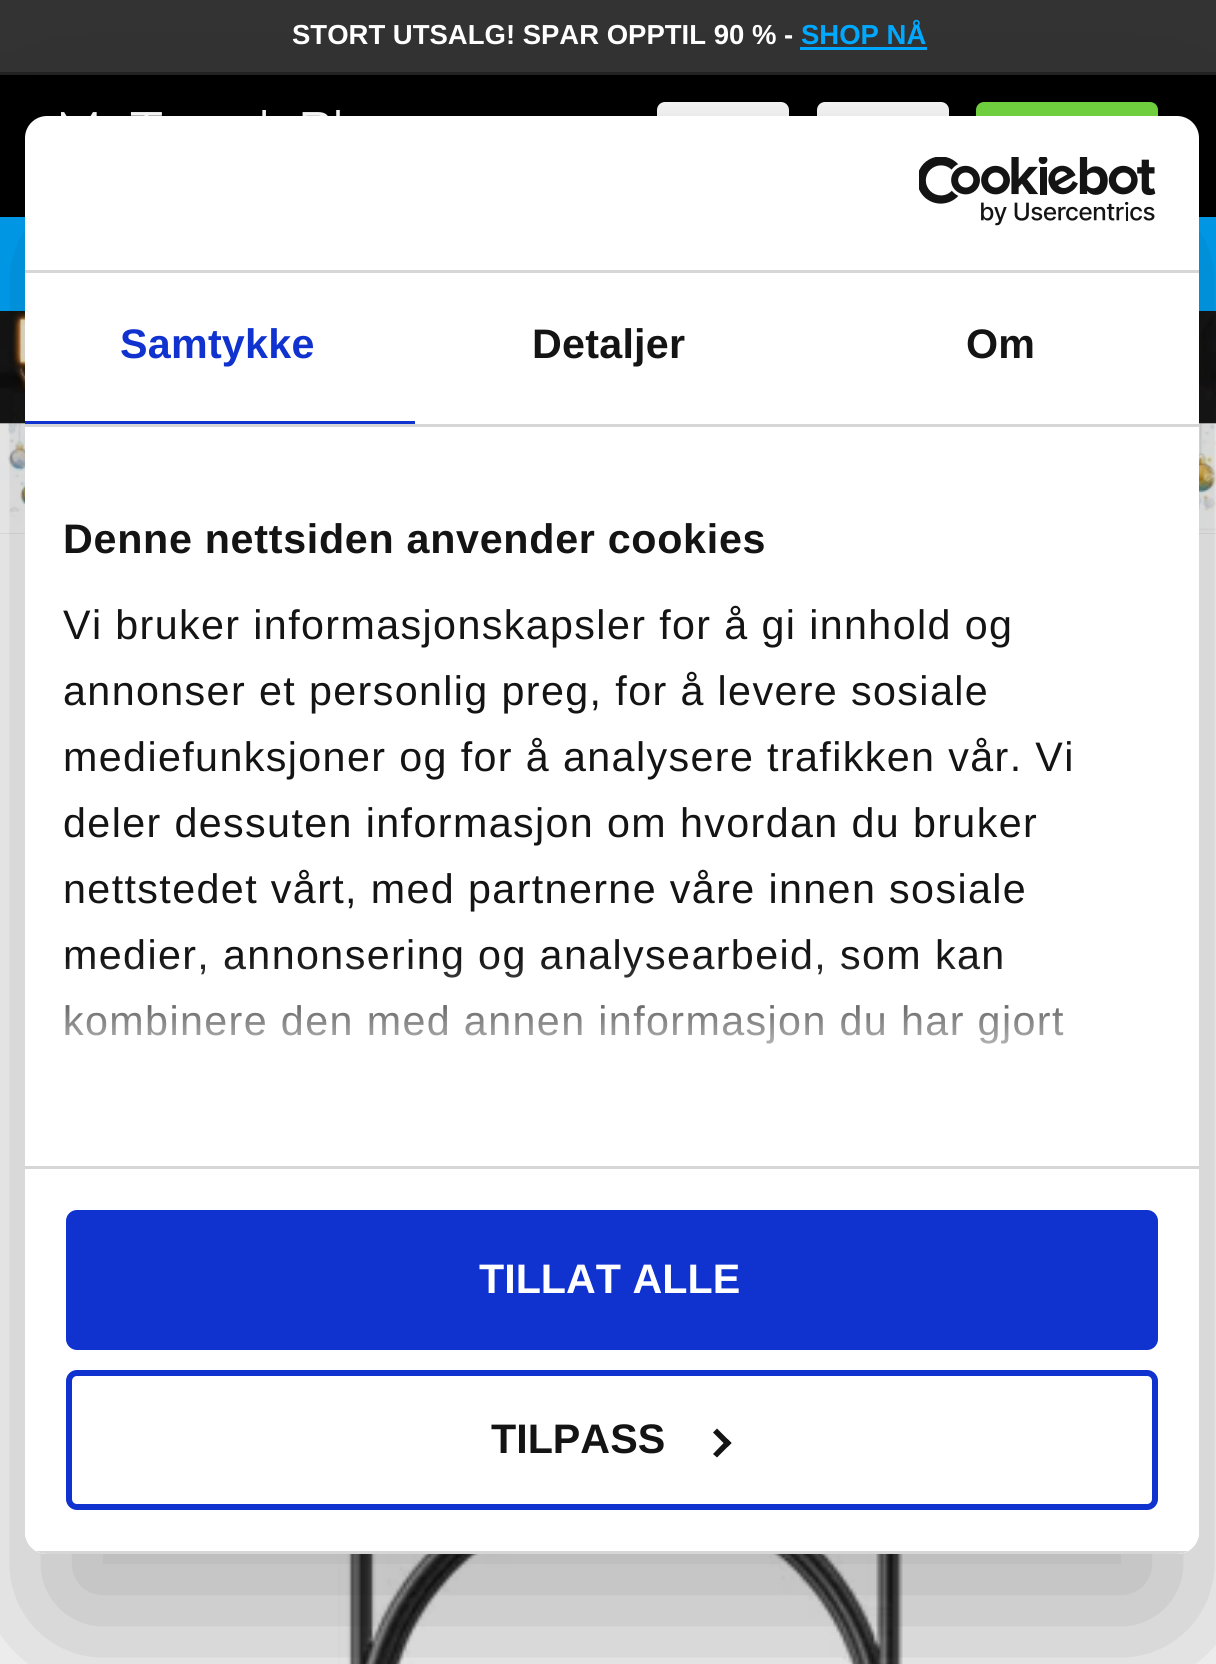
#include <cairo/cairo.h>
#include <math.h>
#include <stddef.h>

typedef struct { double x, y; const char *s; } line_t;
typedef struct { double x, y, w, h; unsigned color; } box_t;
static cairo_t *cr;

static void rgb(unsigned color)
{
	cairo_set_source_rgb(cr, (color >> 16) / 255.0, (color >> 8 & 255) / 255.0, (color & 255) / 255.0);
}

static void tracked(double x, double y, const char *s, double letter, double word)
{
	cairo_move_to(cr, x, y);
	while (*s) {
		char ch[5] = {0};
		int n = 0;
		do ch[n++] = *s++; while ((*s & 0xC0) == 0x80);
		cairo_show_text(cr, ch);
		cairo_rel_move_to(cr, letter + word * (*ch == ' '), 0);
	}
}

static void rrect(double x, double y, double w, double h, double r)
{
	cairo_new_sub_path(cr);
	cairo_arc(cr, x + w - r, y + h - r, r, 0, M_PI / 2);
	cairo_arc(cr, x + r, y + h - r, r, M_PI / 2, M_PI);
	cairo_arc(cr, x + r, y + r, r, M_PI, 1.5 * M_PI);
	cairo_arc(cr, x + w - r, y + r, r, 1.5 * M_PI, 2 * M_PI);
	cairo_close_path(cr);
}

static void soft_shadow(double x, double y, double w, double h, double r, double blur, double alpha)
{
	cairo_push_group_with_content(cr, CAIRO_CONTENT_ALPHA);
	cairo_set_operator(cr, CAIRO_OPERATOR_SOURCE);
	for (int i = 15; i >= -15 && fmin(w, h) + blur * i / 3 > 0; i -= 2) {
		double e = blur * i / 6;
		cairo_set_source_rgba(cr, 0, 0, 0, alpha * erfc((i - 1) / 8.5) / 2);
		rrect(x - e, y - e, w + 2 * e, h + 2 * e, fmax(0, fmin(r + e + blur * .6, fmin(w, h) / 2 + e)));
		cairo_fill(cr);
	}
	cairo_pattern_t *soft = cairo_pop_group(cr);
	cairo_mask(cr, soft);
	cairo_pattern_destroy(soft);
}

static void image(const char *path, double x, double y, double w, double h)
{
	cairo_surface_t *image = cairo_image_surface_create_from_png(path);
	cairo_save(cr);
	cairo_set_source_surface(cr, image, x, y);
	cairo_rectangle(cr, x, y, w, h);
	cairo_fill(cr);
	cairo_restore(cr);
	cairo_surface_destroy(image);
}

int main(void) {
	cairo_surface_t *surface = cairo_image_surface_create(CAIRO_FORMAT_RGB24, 1216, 1664);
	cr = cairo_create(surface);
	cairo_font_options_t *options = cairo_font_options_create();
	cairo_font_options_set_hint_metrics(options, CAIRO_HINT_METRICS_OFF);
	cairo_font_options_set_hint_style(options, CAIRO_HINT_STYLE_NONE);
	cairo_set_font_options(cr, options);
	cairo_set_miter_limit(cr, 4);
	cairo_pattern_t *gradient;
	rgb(0xdfdfdf);
	cairo_paint(cr);
	{
		static const box_t items[] = {
			{0, 0, 1216, 72, 0x333333},
			{0, 72, 1216, 3, 0x222222},
			{800, 47, 127, 3, 0x00a8ff},
			{0, 75, 1216, 142, 0x000000},
		};
		for (size_t i = 0; i < sizeof items / sizeof *items; i++) {
			rgb(items[i].color);
			cairo_rectangle(cr, items[i].x, items[i].y, items[i].w, items[i].h);
			cairo_fill(cr);
		}
	}
	image("img/1.png", 61, 110, 279, 6);
	gradient = cairo_pattern_create_linear(723, 190, 723, 102);
	cairo_pattern_add_color_stop_rgba(gradient, 0, 0.8, 0.8, 0.8, 1);
	cairo_pattern_add_color_stop_rgba(gradient, 1, 1, 1, 1, 1);
	cairo_set_source(cr, gradient);
	cairo_pattern_destroy(gradient);
	rrect(657, 102, 132, 88, 8);
	cairo_fill(cr);
	gradient = cairo_pattern_create_linear(883, 190, 883, 102);
	cairo_pattern_add_color_stop_rgba(gradient, 0, 0.8, 0.8, 0.8, 1);
	cairo_pattern_add_color_stop_rgba(gradient, 1, 1, 1, 1, 1);
	cairo_set_source(cr, gradient);
	cairo_pattern_destroy(gradient);
	rrect(817, 102, 132, 88, 8);
	cairo_fill(cr);
	rgb(0x73d841);
	rrect(976, 102, 182, 88, 8);
	cairo_fill(cr);
	rgb(0x00a8ff);
	cairo_rectangle(cr, 0, 217, 1216, 94);
	cairo_fill(cr);
	image("img/2.png", 0, 311, 1216, 113);
	image("img/3.png", 0, 423, 1216, 111);
	rgb(0xffffff);
	cairo_rectangle(cr, 0, 534, 1216, 1130);
	cairo_fill(cr);
	image("img/4.png", 314, 1554, 628, 110);
	cairo_save(cr);
	cairo_set_fill_rule(cr, CAIRO_FILL_RULE_EVEN_ODD);
	cairo_new_path(cr);
	cairo_move_to(cr, 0, 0);
	cairo_line_to(cr, 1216, 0);
	cairo_line_to(cr, 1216, 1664);
	cairo_line_to(cr, 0, 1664);
	cairo_close_path(cr);
	cairo_move_to(cr, 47, 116);
	cairo_line_to(cr, 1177, 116);
	cairo_curve_to(cr, 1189, 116, 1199, 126, 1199, 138);
	cairo_line_to(cr, 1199, 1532);
	cairo_curve_to(cr, 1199, 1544, 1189, 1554, 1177, 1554);
	cairo_line_to(cr, 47, 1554);
	cairo_curve_to(cr, 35, 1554, 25, 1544, 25, 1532);
	cairo_line_to(cr, 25, 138);
	cairo_curve_to(cr, 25, 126, 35, 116, 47, 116);
	cairo_close_path(cr);
	cairo_clip(cr);
	rgb(0x000000);
	soft_shadow(25, 204, 1174, 1438, 22, 93.5, 0.3);
	cairo_restore(cr);
	rrect(25, 116, 1174, 1438, 22);
	cairo_fill(cr);
	rgb(0xd6d6d6);
	cairo_rectangle(cr, 25, 270, 1174, 3);
	cairo_fill(cr);
	image("img/5.png", 919, 157, 237, 69);
	{
		static const box_t items[] = {
			{25, 424, 1174, 3, 0xd6d6d6},
			{25, 421, 390, 3, 0x1032cf},
			{25, 1166, 1174, 3, 0xd6d6d6},
		};
		for (size_t i = 0; i < sizeof items / sizeof *items; i++) {
			rgb(items[i].color);
			cairo_rectangle(cr, items[i].x, items[i].y, items[i].w, items[i].h);
			cairo_fill(cr);
		}
	}
	cairo_save(cr);
	rrect(25, 116, 1174, 1438, 22);
	cairo_clip(cr);
	cairo_rectangle(cr, 36, 1551, 1152, 3);
	cairo_fill(cr);
	cairo_restore(cr);
	rgb(0x1032cf);
	rrect(69, 1213, 1086, 134, 8);
	cairo_fill_preserve(cr);
	cairo_set_line_width(cr, 6);
	cairo_stroke(cr);
	rrect(69, 1373, 1086, 134, 8);
	cairo_stroke(cr);
	rgb(0x141414);
	cairo_new_path(cr);
	cairo_move_to(cr, 717, 1428.5);
	cairo_line_to(cr, 731.5, 1443);
	cairo_line_to(cr, 727.5, 1447);
	cairo_line_to(cr, 713, 1432.5);
	cairo_close_path(cr);
	cairo_fill(cr);
	cairo_new_path(cr);
	cairo_move_to(cr, 727.5, 1439);
	cairo_line_to(cr, 731.5, 1443);
	cairo_line_to(cr, 717, 1457.5);
	cairo_line_to(cr, 713, 1454);
	cairo_close_path(cr);
	cairo_fill(cr);
	cairo_select_font_face(cr, "Liberation Sans", CAIRO_FONT_SLANT_NORMAL, CAIRO_FONT_WEIGHT_BOLD);
	cairo_set_font_size(cr, 27.5);
	rgb(0xffffff);
	cairo_move_to(cr, 292, 44);
	cairo_show_text(cr, "STORT UTSALG! SPAR OPPTIL 90 % -");
	rgb(0x00a8ff);
	cairo_move_to(cr, 801, 44);
	cairo_show_text(cr, "SHOP NÅ");
	cairo_set_font_size(cr, 41.25);
	rgb(0x1032cf);
	tracked(120, 358, "Samtykke", 0.25, 0);
	rgb(0x141414);
	tracked(532, 358, "Detaljer", 0.25, 0);
	tracked(966, 358, "Om", 0.25, 0);
	tracked(63, 553, "Denne nettsiden anvender cookies", 0.7, 0);
	cairo_select_font_face(cr, "Liberation Sans", CAIRO_FONT_SLANT_NORMAL, CAIRO_FONT_WEIGHT_NORMAL);
	{
		static const line_t items[] = {
			{63, 639, "Vi bruker informasjonskapsler for å gi innhold og"},
			{63, 705, "annonser et personlig preg, for å levere sosiale"},
			{63, 771, "mediefunksjoner og for å analysere trafikken vår. Vi"},
			{63, 837, "deler dessuten informasjon om hvordan du bruker"},
			{63, 903, "nettstedet vårt, med partnerne våre innen sosiale"},
			{63, 969, "medier, annonsering og analysearbeid, som kan"},
			{63, 1035, "kombinere den med annen informasjon du har gjort"},
		};
		for (size_t i = 0; i < sizeof items / sizeof *items; i++) {
			tracked(items[i].x, items[i].y, items[i].s, 1.38, 0);
		}
	}
	gradient = cairo_pattern_create_linear(593, 1165, 593, 958);
	cairo_pattern_add_color_stop_rgba(gradient, 0, 1, 1, 1, 1);
	cairo_pattern_add_color_stop_rgba(gradient, 0.5, 1, 1, 1, 0.8);
	cairo_pattern_add_color_stop_rgba(gradient, 1, 1, 1, 1, 0);
	cairo_set_source(cr, gradient);
	cairo_pattern_destroy(gradient);
	cairo_rectangle(cr, 66, 961, 998, 83);
	cairo_fill(cr);
	cairo_select_font_face(cr, "Liberation Sans", CAIRO_FONT_SLANT_NORMAL, CAIRO_FONT_WEIGHT_BOLD);
	rgb(0xffffff);
	cairo_move_to(cr, 479, 1293);
	cairo_show_text(cr, "TILLAT ALLE");
	rgb(0x141414);
	cairo_move_to(cr, 491, 1453);
	cairo_show_text(cr, "TILPASS");
	cairo_surface_write_to_png(surface, "page.png");
	cairo_font_options_destroy(options);
	cairo_destroy(cr);
	cairo_surface_destroy(surface);
	return 0;
}
